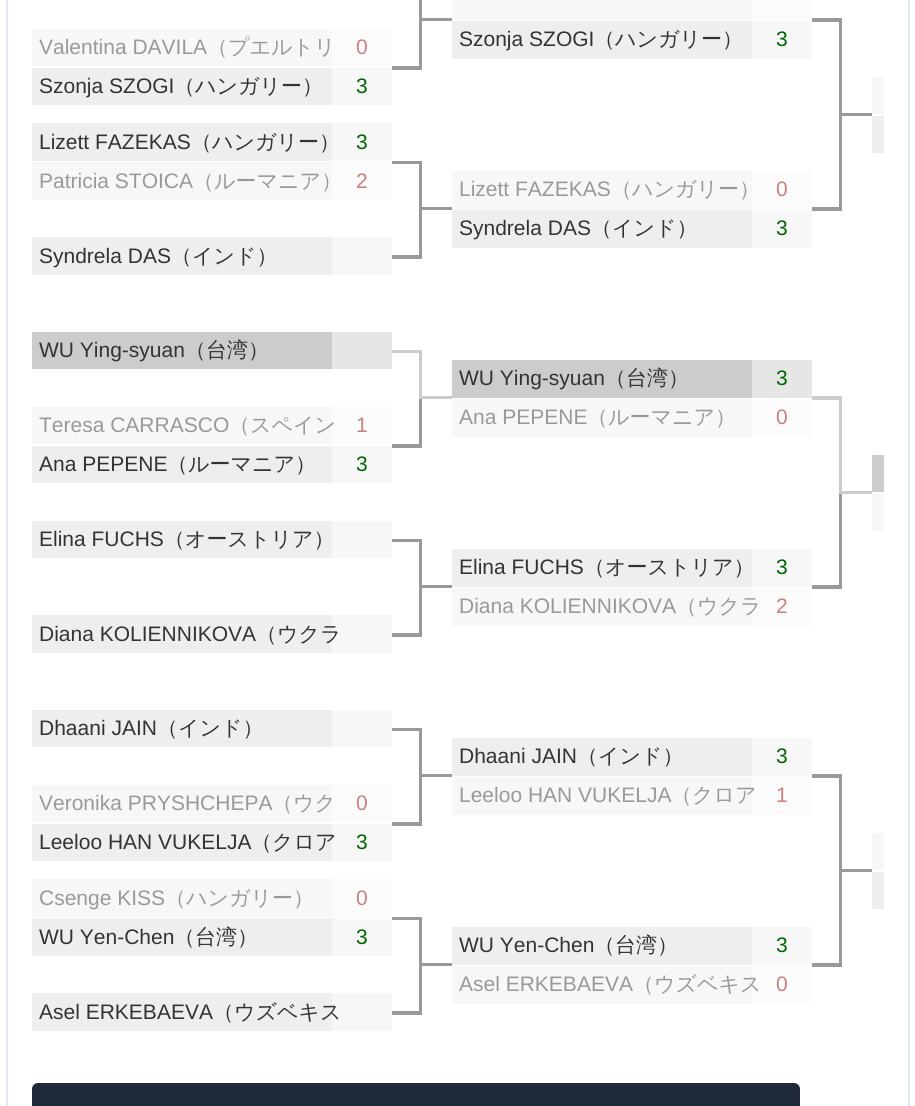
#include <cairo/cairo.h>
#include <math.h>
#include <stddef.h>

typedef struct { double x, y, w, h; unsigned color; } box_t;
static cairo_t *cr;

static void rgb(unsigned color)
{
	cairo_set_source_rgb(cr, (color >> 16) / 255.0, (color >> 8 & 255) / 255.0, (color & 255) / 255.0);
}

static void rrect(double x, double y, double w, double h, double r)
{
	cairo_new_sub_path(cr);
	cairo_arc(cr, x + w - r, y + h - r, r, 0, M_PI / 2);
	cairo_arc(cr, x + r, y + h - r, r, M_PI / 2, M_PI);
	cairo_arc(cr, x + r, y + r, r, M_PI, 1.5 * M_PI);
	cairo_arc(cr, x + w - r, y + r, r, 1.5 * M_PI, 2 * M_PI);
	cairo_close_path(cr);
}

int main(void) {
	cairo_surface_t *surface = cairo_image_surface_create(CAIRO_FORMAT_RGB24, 915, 1106);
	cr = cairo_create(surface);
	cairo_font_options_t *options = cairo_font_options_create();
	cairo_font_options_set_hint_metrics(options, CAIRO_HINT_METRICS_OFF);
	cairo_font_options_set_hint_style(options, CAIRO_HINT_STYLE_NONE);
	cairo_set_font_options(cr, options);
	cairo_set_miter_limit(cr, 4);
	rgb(0xffffff);
	cairo_paint(cr);
	{
		static const box_t items[] = {
			{908, 0, 2, 1106, 0xe2e8f0},
			{6, 0, 2, 1106, 0xe2e8f0},
			{32, 29, 300, 37, 0xf7f7f7},
			{332, 29, 60, 37, 0xfbfbfb},
			{32, 68, 300, 37, 0xeeeeee},
			{332, 68, 60, 37, 0xf7f7f7},
			{419, 0, 3, 69, 0x999999},
			{392, 66, 30, 4, 0x999999},
			{422, 18, 30, 3, 0x999999},
			{32, 123, 300, 38, 0xeeeeee},
			{332, 123, 60, 38, 0xf7f7f7},
			{32, 162, 300, 38, 0xf7f7f7},
			{332, 162, 60, 38, 0xfbfbfb},
			{392, 161, 30, 3, 0x999999},
			{419, 161, 3, 97, 0x999999},
			{422, 207, 30, 3, 0x999999},
			{32, 237, 300, 38, 0xeeeeee},
			{332, 237, 60, 38, 0xf7f7f7},
			{392, 255, 30, 4, 0x999999},
			{32, 332, 300, 37, 0xcccccc},
			{332, 332, 60, 37, 0xe6e6e6},
			{392, 350, 30, 3, 0xcccccc},
			{419, 396, 3, 51, 0x999999},
			{419, 350, 3, 49, 0xcccccc},
			{422, 396, 30, 3, 0xcccccc},
			{32, 407, 300, 37, 0xf7f7f7},
			{332, 407, 60, 37, 0xfbfbfb},
			{32, 446, 300, 37, 0xeeeeee},
			{332, 446, 60, 37, 0xf7f7f7},
			{392, 444, 30, 4, 0x999999},
			{32, 521, 300, 37, 0xeeeeee},
			{332, 521, 60, 37, 0xf7f7f7},
			{392, 539, 30, 3, 0x999999},
			{419, 539, 3, 97, 0x999999},
			{422, 585, 30, 3, 0x999999},
			{32, 615, 300, 38, 0xeeeeee},
			{332, 615, 60, 38, 0xf7f7f7},
			{392, 633, 30, 4, 0x999999},
			{32, 710, 300, 37, 0xeeeeee},
			{332, 710, 60, 37, 0xf7f7f7},
			{392, 728, 30, 3, 0x999999},
			{419, 728, 3, 97, 0x999999},
			{422, 774, 30, 3, 0x999999},
			{32, 785, 300, 37, 0xf7f7f7},
			{332, 785, 60, 37, 0xfbfbfb},
			{32, 824, 300, 37, 0xeeeeee},
			{332, 824, 60, 37, 0xf7f7f7},
			{392, 822, 30, 4, 0x999999},
			{32, 879, 300, 38, 0xf7f7f7},
			{332, 879, 60, 38, 0xfbfbfb},
			{32, 918, 300, 38, 0xeeeeee},
			{332, 918, 60, 38, 0xf7f7f7},
			{392, 917, 30, 3, 0x999999},
			{419, 917, 3, 97, 0x999999},
			{422, 963, 30, 3, 0x999999},
			{32, 993, 300, 38, 0xeeeeee},
			{332, 993, 60, 38, 0xf7f7f7},
			{392, 1011, 30, 4, 0x999999},
			{452, 0, 300, 20, 0xf7f7f7},
			{752, 0, 60, 20, 0xfbfbfb},
			{452, 21, 300, 38, 0xeeeeee},
			{752, 21, 60, 38, 0xf7f7f7},
			{812, 18, 30, 4, 0x999999},
			{839, 18, 3, 192, 0x999999},
			{842, 113, 30, 3, 0x999999},
			{452, 171, 300, 38, 0xf7f7f7},
			{752, 171, 60, 38, 0xfbfbfb},
			{452, 210, 300, 38, 0xeeeeee},
			{752, 210, 60, 38, 0xf7f7f7},
			{812, 207, 30, 4, 0x999999},
			{452, 360, 300, 38, 0xcccccc},
			{752, 360, 60, 38, 0xe6e6e6},
			{452, 399, 300, 38, 0xf7f7f7},
			{752, 399, 60, 38, 0xfbfbfb},
			{812, 396, 30, 4, 0xcccccc},
			{839, 491, 3, 97, 0x999999},
			{839, 396, 3, 98, 0xcccccc},
			{842, 491, 30, 3, 0xcccccc},
			{452, 549, 300, 38, 0xeeeeee},
			{752, 549, 60, 38, 0xf7f7f7},
			{452, 588, 300, 38, 0xf7f7f7},
			{752, 588, 60, 38, 0xfbfbfb},
			{812, 585, 30, 4, 0x999999},
			{452, 738, 300, 38, 0xeeeeee},
			{752, 738, 60, 38, 0xf7f7f7},
			{452, 777, 300, 38, 0xf7f7f7},
			{752, 777, 60, 38, 0xfbfbfb},
			{812, 774, 30, 4, 0x999999},
			{839, 774, 3, 192, 0x999999},
			{842, 869, 30, 3, 0x999999},
			{452, 927, 300, 38, 0xeeeeee},
			{752, 927, 60, 38, 0xf7f7f7},
			{452, 966, 300, 38, 0xf7f7f7},
			{752, 966, 60, 38, 0xfbfbfb},
			{812, 963, 30, 4, 0x999999},
			{872, 77, 12, 37, 0xf7f7f7},
			{872, 116, 12, 37, 0xeeeeee},
			{872, 455, 12, 37, 0xcccccc},
			{872, 494, 12, 37, 0xf7f7f7},
			{872, 833, 12, 37, 0xf7f7f7},
			{872, 872, 12, 37, 0xeeeeee},
		};
		for (size_t i = 0; i < sizeof items / sizeof *items; i++) {
			rgb(items[i].color);
			cairo_rectangle(cr, items[i].x, items[i].y, items[i].w, items[i].h);
			cairo_fill(cr);
		}
	}
	rgb(0x1f2937);
	rrect(32, 1083, 768, 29, 6);
	cairo_fill(cr);
	cairo_select_font_face(cr, "Liberation Sans", CAIRO_FONT_SLANT_NORMAL, CAIRO_FONT_WEIGHT_NORMAL);
	cairo_set_font_size(cr, 21);
	rgb(0x999999);
	cairo_move_to(cr, 39, 54);
	cairo_show_text(cr, "Valentina DAVILA");
	cairo_select_font_face(cr, "WenQuanYi Zen Hei Medium", CAIRO_FONT_SLANT_NORMAL, CAIRO_FONT_WEIGHT_NORMAL);
	cairo_move_to(cr, 207, 54);
	cairo_show_text(cr, "（プエルトリ");
	cairo_select_font_face(cr, "Liberation Sans", CAIRO_FONT_SLANT_NORMAL, CAIRO_FONT_WEIGHT_NORMAL);
	rgb(0xcc8080);
	cairo_move_to(cr, 356, 54);
	cairo_show_text(cr, "0");
	rgb(0x333333);
	cairo_move_to(cr, 39, 93);
	cairo_show_text(cr, "Szonja SZOGI");
	cairo_select_font_face(cr, "WenQuanYi Zen Hei Medium", CAIRO_FONT_SLANT_NORMAL, CAIRO_FONT_WEIGHT_NORMAL);
	cairo_move_to(cr, 174, 93);
	cairo_show_text(cr, "（ハンガリー）");
	cairo_select_font_face(cr, "Liberation Sans", CAIRO_FONT_SLANT_NORMAL, CAIRO_FONT_WEIGHT_NORMAL);
	rgb(0x006600);
	cairo_move_to(cr, 356, 93);
	cairo_show_text(cr, "3");
	rgb(0x333333);
	cairo_move_to(cr, 39, 149);
	cairo_show_text(cr, "Lizett FAZEKAS");
	cairo_select_font_face(cr, "WenQuanYi Zen Hei Medium", CAIRO_FONT_SLANT_NORMAL, CAIRO_FONT_WEIGHT_NORMAL);
	cairo_move_to(cr, 191, 149);
	cairo_show_text(cr, "（ハンガリー）");
	cairo_select_font_face(cr, "Liberation Sans", CAIRO_FONT_SLANT_NORMAL, CAIRO_FONT_WEIGHT_NORMAL);
	rgb(0x006600);
	cairo_move_to(cr, 356, 149);
	cairo_show_text(cr, "3");
	rgb(0x999999);
	cairo_move_to(cr, 39, 188);
	cairo_show_text(cr, "Patricia STOICA");
	cairo_select_font_face(cr, "WenQuanYi Zen Hei Medium", CAIRO_FONT_SLANT_NORMAL, CAIRO_FONT_WEIGHT_NORMAL);
	cairo_move_to(cr, 193, 188);
	cairo_show_text(cr, "（ルーマニア）");
	cairo_select_font_face(cr, "Liberation Sans", CAIRO_FONT_SLANT_NORMAL, CAIRO_FONT_WEIGHT_NORMAL);
	rgb(0xcc8080);
	cairo_move_to(cr, 356, 188);
	cairo_show_text(cr, "2");
	rgb(0x333333);
	cairo_move_to(cr, 39, 263);
	cairo_show_text(cr, "Syndrela DAS");
	cairo_select_font_face(cr, "WenQuanYi Zen Hei Medium", CAIRO_FONT_SLANT_NORMAL, CAIRO_FONT_WEIGHT_NORMAL);
	cairo_move_to(cr, 171, 263);
	cairo_show_text(cr, "（インド）");
	cairo_select_font_face(cr, "Liberation Sans", CAIRO_FONT_SLANT_NORMAL, CAIRO_FONT_WEIGHT_NORMAL);
	cairo_move_to(cr, 39, 357);
	cairo_show_text(cr, "WU Ying-syuan");
	cairo_select_font_face(cr, "WenQuanYi Zen Hei Medium", CAIRO_FONT_SLANT_NORMAL, CAIRO_FONT_WEIGHT_NORMAL);
	cairo_move_to(cr, 185, 357);
	cairo_show_text(cr, "（台湾）");
	cairo_select_font_face(cr, "Liberation Sans", CAIRO_FONT_SLANT_NORMAL, CAIRO_FONT_WEIGHT_NORMAL);
	rgb(0x999999);
	cairo_move_to(cr, 39, 432);
	cairo_show_text(cr, "Teresa CARRASCO");
	cairo_select_font_face(cr, "WenQuanYi Zen Hei Medium", CAIRO_FONT_SLANT_NORMAL, CAIRO_FONT_WEIGHT_NORMAL);
	cairo_move_to(cr, 229, 432);
	cairo_show_text(cr, "（スペイン");
	cairo_select_font_face(cr, "Liberation Sans", CAIRO_FONT_SLANT_NORMAL, CAIRO_FONT_WEIGHT_NORMAL);
	rgb(0xcc8080);
	cairo_move_to(cr, 356, 432);
	cairo_show_text(cr, "1");
	rgb(0x333333);
	cairo_move_to(cr, 39, 471);
	cairo_show_text(cr, "Ana PEPENE");
	cairo_select_font_face(cr, "WenQuanYi Zen Hei Medium", CAIRO_FONT_SLANT_NORMAL, CAIRO_FONT_WEIGHT_NORMAL);
	cairo_move_to(cr, 167, 471);
	cairo_show_text(cr, "（ルーマニア）");
	cairo_select_font_face(cr, "Liberation Sans", CAIRO_FONT_SLANT_NORMAL, CAIRO_FONT_WEIGHT_NORMAL);
	rgb(0x006600);
	cairo_move_to(cr, 356, 471);
	cairo_show_text(cr, "3");
	rgb(0x333333);
	cairo_move_to(cr, 39, 546);
	cairo_show_text(cr, "Elina FUCHS");
	cairo_select_font_face(cr, "WenQuanYi Zen Hei Medium", CAIRO_FONT_SLANT_NORMAL, CAIRO_FONT_WEIGHT_NORMAL);
	cairo_move_to(cr, 164, 546);
	cairo_show_text(cr, "（オーストリア）");
	cairo_select_font_face(cr, "Liberation Sans", CAIRO_FONT_SLANT_NORMAL, CAIRO_FONT_WEIGHT_NORMAL);
	cairo_move_to(cr, 39, 641);
	cairo_show_text(cr, "Diana KOLIENNIKOVA");
	cairo_select_font_face(cr, "WenQuanYi Zen Hei Medium", CAIRO_FONT_SLANT_NORMAL, CAIRO_FONT_WEIGHT_NORMAL);
	cairo_move_to(cr, 256, 641);
	cairo_show_text(cr, "（ウクラ");
	cairo_select_font_face(cr, "Liberation Sans", CAIRO_FONT_SLANT_NORMAL, CAIRO_FONT_WEIGHT_NORMAL);
	cairo_move_to(cr, 39, 735);
	cairo_show_text(cr, "Dhaani JAIN");
	cairo_select_font_face(cr, "WenQuanYi Zen Hei Medium", CAIRO_FONT_SLANT_NORMAL, CAIRO_FONT_WEIGHT_NORMAL);
	cairo_move_to(cr, 157, 735);
	cairo_show_text(cr, "（インド）");
	cairo_select_font_face(cr, "Liberation Sans", CAIRO_FONT_SLANT_NORMAL, CAIRO_FONT_WEIGHT_NORMAL);
	rgb(0x999999);
	cairo_move_to(cr, 39, 810);
	cairo_show_text(cr, "Veronika PRYSHCHEPA");
	cairo_select_font_face(cr, "WenQuanYi Zen Hei Medium", CAIRO_FONT_SLANT_NORMAL, CAIRO_FONT_WEIGHT_NORMAL);
	cairo_move_to(cr, 272, 810);
	cairo_show_text(cr, "（ウク");
	cairo_select_font_face(cr, "Liberation Sans", CAIRO_FONT_SLANT_NORMAL, CAIRO_FONT_WEIGHT_NORMAL);
	rgb(0xcc8080);
	cairo_move_to(cr, 356, 810);
	cairo_show_text(cr, "0");
	rgb(0x333333);
	cairo_move_to(cr, 39, 849);
	cairo_show_text(cr, "Leeloo HAN VUKELJA");
	cairo_select_font_face(cr, "WenQuanYi Zen Hei Medium", CAIRO_FONT_SLANT_NORMAL, CAIRO_FONT_WEIGHT_NORMAL);
	cairo_move_to(cr, 251, 849);
	cairo_show_text(cr, "（クロア");
	cairo_select_font_face(cr, "Liberation Sans", CAIRO_FONT_SLANT_NORMAL, CAIRO_FONT_WEIGHT_NORMAL);
	rgb(0x006600);
	cairo_move_to(cr, 356, 849);
	cairo_show_text(cr, "3");
	rgb(0x999999);
	cairo_move_to(cr, 39, 905);
	cairo_show_text(cr, "Csenge KISS");
	cairo_select_font_face(cr, "WenQuanYi Zen Hei Medium", CAIRO_FONT_SLANT_NORMAL, CAIRO_FONT_WEIGHT_NORMAL);
	cairo_move_to(cr, 165, 905);
	cairo_show_text(cr, "（ハンガリー）");
	cairo_select_font_face(cr, "Liberation Sans", CAIRO_FONT_SLANT_NORMAL, CAIRO_FONT_WEIGHT_NORMAL);
	rgb(0xcc8080);
	cairo_move_to(cr, 356, 905);
	cairo_show_text(cr, "0");
	rgb(0x333333);
	cairo_move_to(cr, 39, 944);
	cairo_show_text(cr, "WU Yen-Chen");
	cairo_select_font_face(cr, "WenQuanYi Zen Hei Medium", CAIRO_FONT_SLANT_NORMAL, CAIRO_FONT_WEIGHT_NORMAL);
	cairo_move_to(cr, 174, 944);
	cairo_show_text(cr, "（台湾）");
	cairo_select_font_face(cr, "Liberation Sans", CAIRO_FONT_SLANT_NORMAL, CAIRO_FONT_WEIGHT_NORMAL);
	rgb(0x006600);
	cairo_move_to(cr, 356, 944);
	cairo_show_text(cr, "3");
	rgb(0x333333);
	cairo_move_to(cr, 39, 1019);
	cairo_show_text(cr, "Asel ERKEBAEVA");
	cairo_select_font_face(cr, "WenQuanYi Zen Hei Medium", CAIRO_FONT_SLANT_NORMAL, CAIRO_FONT_WEIGHT_NORMAL);
	cairo_move_to(cr, 213, 1019);
	cairo_show_text(cr, "（ウズベキス");
	cairo_select_font_face(cr, "Liberation Sans", CAIRO_FONT_SLANT_NORMAL, CAIRO_FONT_WEIGHT_NORMAL);
	cairo_move_to(cr, 459, 46);
	cairo_show_text(cr, "Szonja SZOGI");
	cairo_select_font_face(cr, "WenQuanYi Zen Hei Medium", CAIRO_FONT_SLANT_NORMAL, CAIRO_FONT_WEIGHT_NORMAL);
	cairo_move_to(cr, 594, 46);
	cairo_show_text(cr, "（ハンガリー）");
	cairo_select_font_face(cr, "Liberation Sans", CAIRO_FONT_SLANT_NORMAL, CAIRO_FONT_WEIGHT_NORMAL);
	rgb(0x006600);
	cairo_move_to(cr, 776, 46);
	cairo_show_text(cr, "3");
	rgb(0x999999);
	cairo_move_to(cr, 459, 196);
	cairo_show_text(cr, "Lizett FAZEKAS");
	cairo_select_font_face(cr, "WenQuanYi Zen Hei Medium", CAIRO_FONT_SLANT_NORMAL, CAIRO_FONT_WEIGHT_NORMAL);
	cairo_move_to(cr, 611, 196);
	cairo_show_text(cr, "（ハンガリー）");
	cairo_select_font_face(cr, "Liberation Sans", CAIRO_FONT_SLANT_NORMAL, CAIRO_FONT_WEIGHT_NORMAL);
	rgb(0xcc8080);
	cairo_move_to(cr, 776, 196);
	cairo_show_text(cr, "0");
	rgb(0x333333);
	cairo_move_to(cr, 459, 235);
	cairo_show_text(cr, "Syndrela DAS");
	cairo_select_font_face(cr, "WenQuanYi Zen Hei Medium", CAIRO_FONT_SLANT_NORMAL, CAIRO_FONT_WEIGHT_NORMAL);
	cairo_move_to(cr, 591, 235);
	cairo_show_text(cr, "（インド）");
	cairo_select_font_face(cr, "Liberation Sans", CAIRO_FONT_SLANT_NORMAL, CAIRO_FONT_WEIGHT_NORMAL);
	rgb(0x006600);
	cairo_move_to(cr, 776, 235);
	cairo_show_text(cr, "3");
	rgb(0x333333);
	cairo_move_to(cr, 459, 385);
	cairo_show_text(cr, "WU Ying-syuan");
	cairo_select_font_face(cr, "WenQuanYi Zen Hei Medium", CAIRO_FONT_SLANT_NORMAL, CAIRO_FONT_WEIGHT_NORMAL);
	cairo_move_to(cr, 605, 385);
	cairo_show_text(cr, "（台湾）");
	cairo_select_font_face(cr, "Liberation Sans", CAIRO_FONT_SLANT_NORMAL, CAIRO_FONT_WEIGHT_NORMAL);
	rgb(0x006600);
	cairo_move_to(cr, 776, 385);
	cairo_show_text(cr, "3");
	rgb(0x999999);
	cairo_move_to(cr, 459, 424);
	cairo_show_text(cr, "Ana PEPENE");
	cairo_select_font_face(cr, "WenQuanYi Zen Hei Medium", CAIRO_FONT_SLANT_NORMAL, CAIRO_FONT_WEIGHT_NORMAL);
	cairo_move_to(cr, 587, 424);
	cairo_show_text(cr, "（ルーマニア）");
	cairo_select_font_face(cr, "Liberation Sans", CAIRO_FONT_SLANT_NORMAL, CAIRO_FONT_WEIGHT_NORMAL);
	rgb(0xcc8080);
	cairo_move_to(cr, 776, 424);
	cairo_show_text(cr, "0");
	rgb(0x333333);
	cairo_move_to(cr, 459, 574);
	cairo_show_text(cr, "Elina FUCHS");
	cairo_select_font_face(cr, "WenQuanYi Zen Hei Medium", CAIRO_FONT_SLANT_NORMAL, CAIRO_FONT_WEIGHT_NORMAL);
	cairo_move_to(cr, 584, 574);
	cairo_show_text(cr, "（オーストリア）");
	cairo_select_font_face(cr, "Liberation Sans", CAIRO_FONT_SLANT_NORMAL, CAIRO_FONT_WEIGHT_NORMAL);
	rgb(0x006600);
	cairo_move_to(cr, 776, 574);
	cairo_show_text(cr, "3");
	rgb(0x999999);
	cairo_move_to(cr, 459, 613);
	cairo_show_text(cr, "Diana KOLIENNIKOVA");
	cairo_select_font_face(cr, "WenQuanYi Zen Hei Medium", CAIRO_FONT_SLANT_NORMAL, CAIRO_FONT_WEIGHT_NORMAL);
	cairo_move_to(cr, 676, 613);
	cairo_show_text(cr, "（ウクラ");
	cairo_select_font_face(cr, "Liberation Sans", CAIRO_FONT_SLANT_NORMAL, CAIRO_FONT_WEIGHT_NORMAL);
	rgb(0xcc8080);
	cairo_move_to(cr, 776, 613);
	cairo_show_text(cr, "2");
	rgb(0x333333);
	cairo_move_to(cr, 459, 763);
	cairo_show_text(cr, "Dhaani JAIN");
	cairo_select_font_face(cr, "WenQuanYi Zen Hei Medium", CAIRO_FONT_SLANT_NORMAL, CAIRO_FONT_WEIGHT_NORMAL);
	cairo_move_to(cr, 577, 763);
	cairo_show_text(cr, "（インド）");
	cairo_select_font_face(cr, "Liberation Sans", CAIRO_FONT_SLANT_NORMAL, CAIRO_FONT_WEIGHT_NORMAL);
	rgb(0x006600);
	cairo_move_to(cr, 776, 763);
	cairo_show_text(cr, "3");
	rgb(0x999999);
	cairo_move_to(cr, 459, 802);
	cairo_show_text(cr, "Leeloo HAN VUKELJA");
	cairo_select_font_face(cr, "WenQuanYi Zen Hei Medium", CAIRO_FONT_SLANT_NORMAL, CAIRO_FONT_WEIGHT_NORMAL);
	cairo_move_to(cr, 671, 802);
	cairo_show_text(cr, "（クロア");
	cairo_select_font_face(cr, "Liberation Sans", CAIRO_FONT_SLANT_NORMAL, CAIRO_FONT_WEIGHT_NORMAL);
	rgb(0xcc8080);
	cairo_move_to(cr, 776, 802);
	cairo_show_text(cr, "1");
	rgb(0x333333);
	cairo_move_to(cr, 459, 952);
	cairo_show_text(cr, "WU Yen-Chen");
	cairo_select_font_face(cr, "WenQuanYi Zen Hei Medium", CAIRO_FONT_SLANT_NORMAL, CAIRO_FONT_WEIGHT_NORMAL);
	cairo_move_to(cr, 594, 952);
	cairo_show_text(cr, "（台湾）");
	cairo_select_font_face(cr, "Liberation Sans", CAIRO_FONT_SLANT_NORMAL, CAIRO_FONT_WEIGHT_NORMAL);
	rgb(0x006600);
	cairo_move_to(cr, 776, 952);
	cairo_show_text(cr, "3");
	rgb(0x999999);
	cairo_move_to(cr, 459, 991);
	cairo_show_text(cr, "Asel ERKEBAEVA");
	cairo_select_font_face(cr, "WenQuanYi Zen Hei Medium", CAIRO_FONT_SLANT_NORMAL, CAIRO_FONT_WEIGHT_NORMAL);
	cairo_move_to(cr, 633, 991);
	cairo_show_text(cr, "（ウズベキス");
	cairo_select_font_face(cr, "Liberation Sans", CAIRO_FONT_SLANT_NORMAL, CAIRO_FONT_WEIGHT_NORMAL);
	rgb(0xcc8080);
	cairo_move_to(cr, 776, 991);
	cairo_show_text(cr, "0");
	cairo_surface_write_to_png(surface, "page.png");
	cairo_font_options_destroy(options);
	cairo_destroy(cr);
	cairo_surface_destroy(surface);
	return 0;
}
